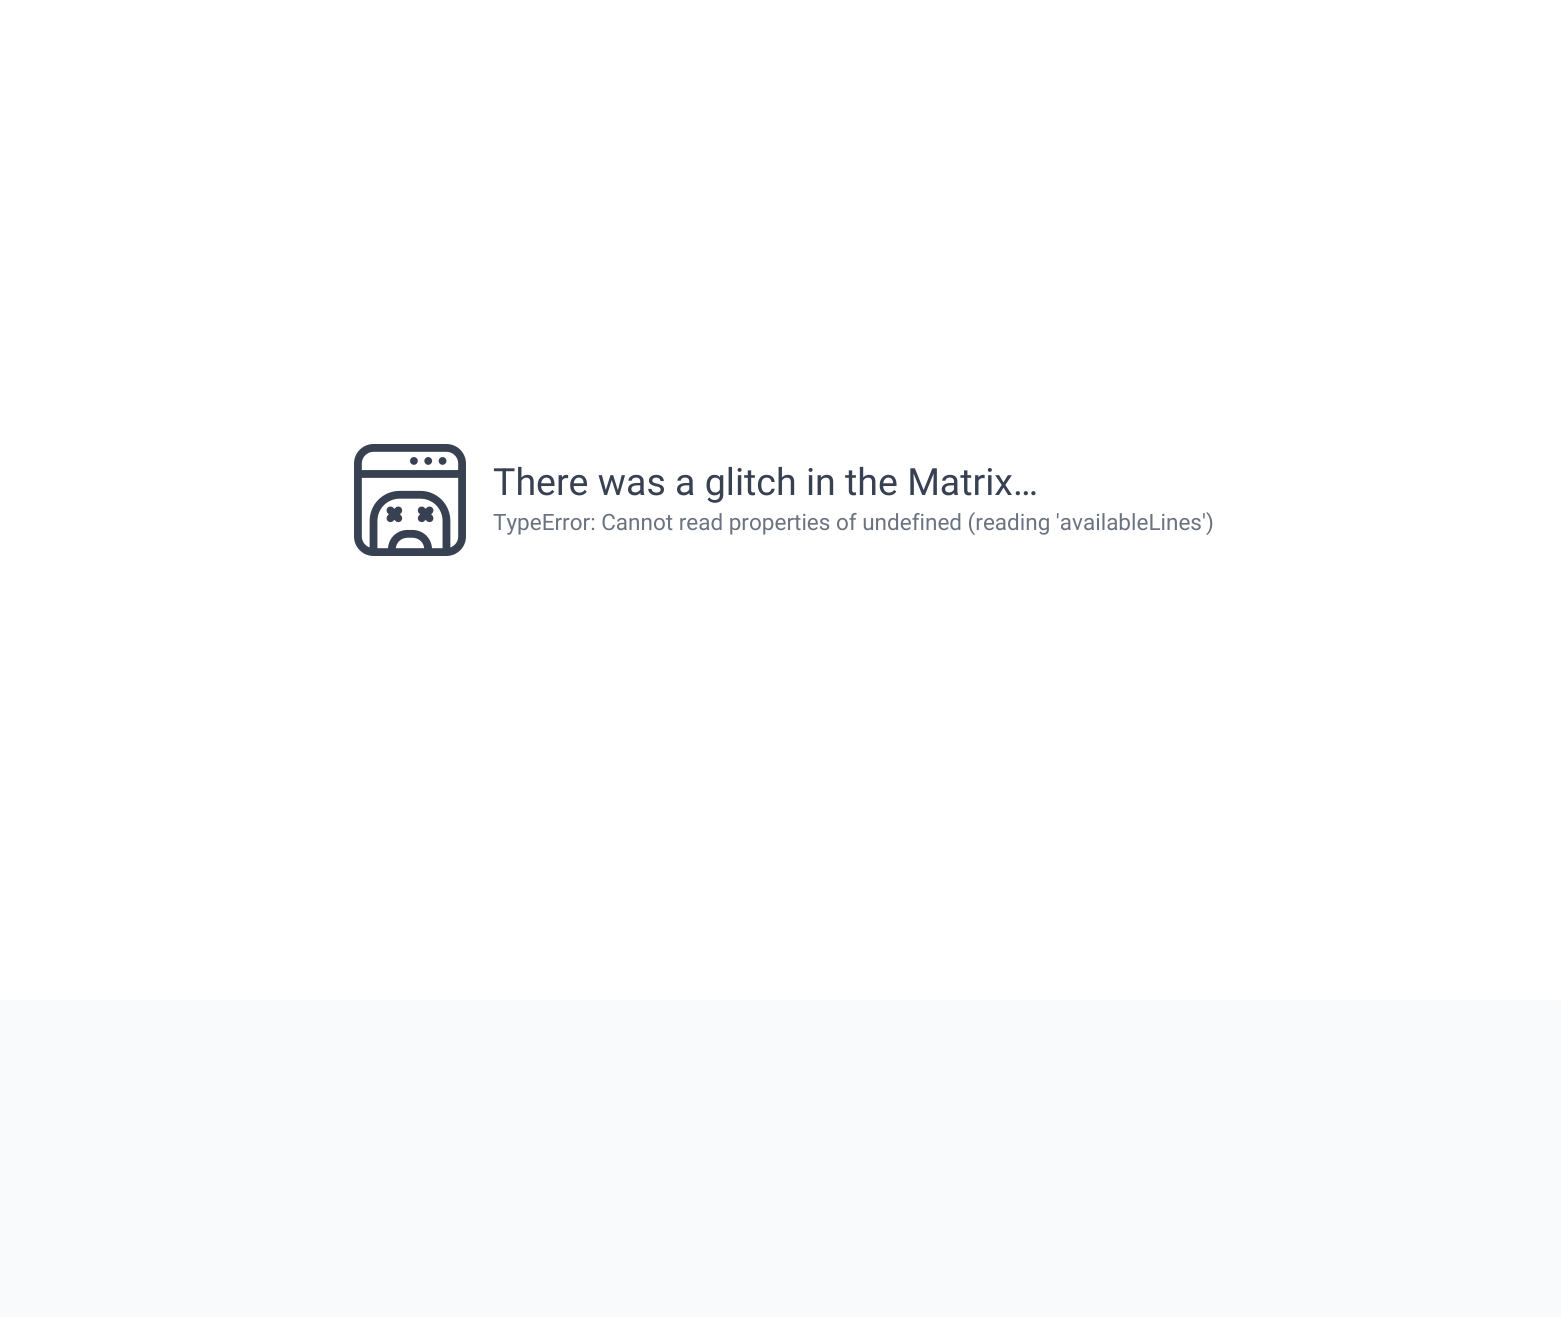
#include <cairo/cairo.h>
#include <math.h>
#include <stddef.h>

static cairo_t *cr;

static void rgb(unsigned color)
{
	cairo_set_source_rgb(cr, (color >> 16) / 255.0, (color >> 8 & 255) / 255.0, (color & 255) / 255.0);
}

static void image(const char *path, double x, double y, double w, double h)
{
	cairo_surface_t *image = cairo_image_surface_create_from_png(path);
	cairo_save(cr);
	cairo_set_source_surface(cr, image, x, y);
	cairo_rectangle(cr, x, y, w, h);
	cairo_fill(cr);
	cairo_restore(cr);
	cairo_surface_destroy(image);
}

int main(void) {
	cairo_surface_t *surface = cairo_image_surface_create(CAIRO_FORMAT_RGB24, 1561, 1317);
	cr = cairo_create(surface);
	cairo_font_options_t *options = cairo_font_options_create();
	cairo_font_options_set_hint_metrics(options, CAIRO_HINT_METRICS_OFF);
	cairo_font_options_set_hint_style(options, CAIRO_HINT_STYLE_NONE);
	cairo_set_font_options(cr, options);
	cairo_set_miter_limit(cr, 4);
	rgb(0xf9fafb);
	cairo_paint(cr);
	rgb(0xffffff);
	cairo_rectangle(cr, 0, 0, 1561, 1000);
	cairo_fill(cr);
	image("img/1.png", 354, 444, 112, 112);
	cairo_select_font_face(cr, "Roboto", CAIRO_FONT_SLANT_NORMAL, CAIRO_FONT_WEIGHT_NORMAL);
	cairo_set_font_size(cr, 37.5);
	rgb(0x374151);
	cairo_move_to(cr, 493, 495);
	cairo_show_text(cr, "There was a glitch in the Matrix…");
	cairo_set_font_size(cr, 22.5);
	rgb(0x6b7280);
	cairo_move_to(cr, 493, 530);
	cairo_show_text(cr, "TypeError: Cannot read properties of undefined (reading 'availableLines')");
	cairo_surface_write_to_png(surface, "page.png");
	cairo_font_options_destroy(options);
	cairo_destroy(cr);
	cairo_surface_destroy(surface);
	return 0;
}
